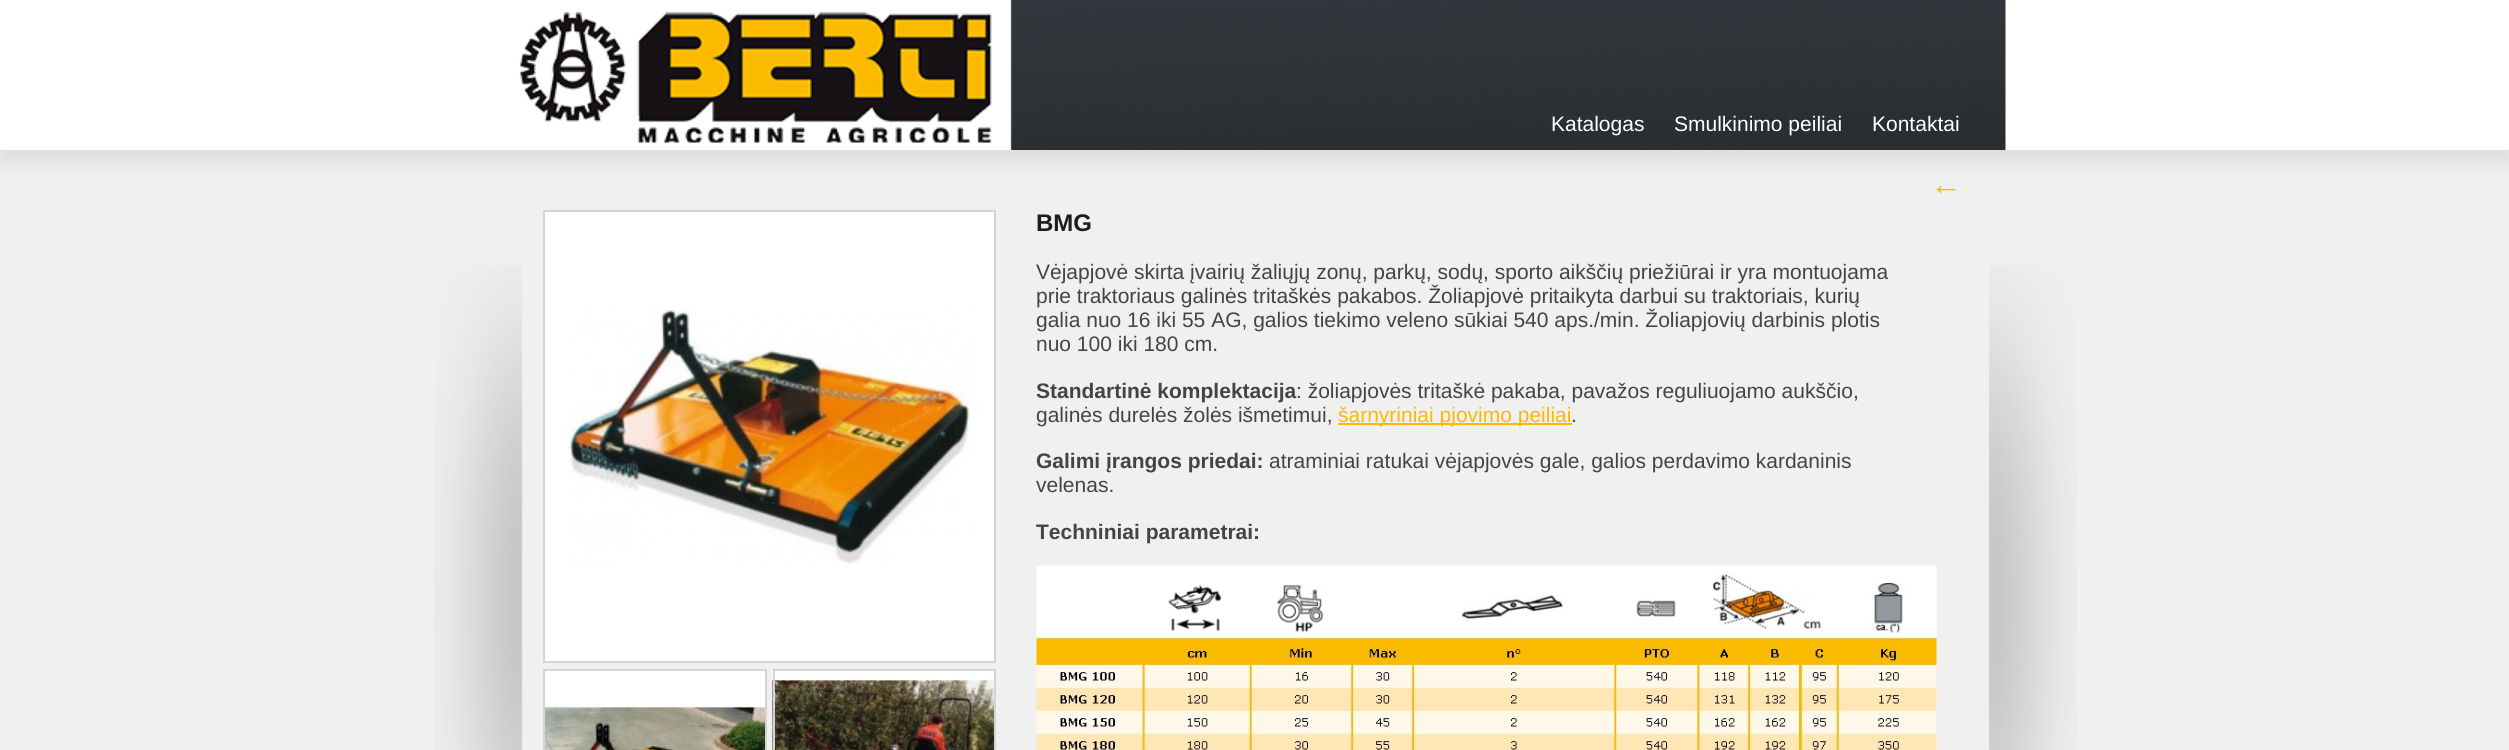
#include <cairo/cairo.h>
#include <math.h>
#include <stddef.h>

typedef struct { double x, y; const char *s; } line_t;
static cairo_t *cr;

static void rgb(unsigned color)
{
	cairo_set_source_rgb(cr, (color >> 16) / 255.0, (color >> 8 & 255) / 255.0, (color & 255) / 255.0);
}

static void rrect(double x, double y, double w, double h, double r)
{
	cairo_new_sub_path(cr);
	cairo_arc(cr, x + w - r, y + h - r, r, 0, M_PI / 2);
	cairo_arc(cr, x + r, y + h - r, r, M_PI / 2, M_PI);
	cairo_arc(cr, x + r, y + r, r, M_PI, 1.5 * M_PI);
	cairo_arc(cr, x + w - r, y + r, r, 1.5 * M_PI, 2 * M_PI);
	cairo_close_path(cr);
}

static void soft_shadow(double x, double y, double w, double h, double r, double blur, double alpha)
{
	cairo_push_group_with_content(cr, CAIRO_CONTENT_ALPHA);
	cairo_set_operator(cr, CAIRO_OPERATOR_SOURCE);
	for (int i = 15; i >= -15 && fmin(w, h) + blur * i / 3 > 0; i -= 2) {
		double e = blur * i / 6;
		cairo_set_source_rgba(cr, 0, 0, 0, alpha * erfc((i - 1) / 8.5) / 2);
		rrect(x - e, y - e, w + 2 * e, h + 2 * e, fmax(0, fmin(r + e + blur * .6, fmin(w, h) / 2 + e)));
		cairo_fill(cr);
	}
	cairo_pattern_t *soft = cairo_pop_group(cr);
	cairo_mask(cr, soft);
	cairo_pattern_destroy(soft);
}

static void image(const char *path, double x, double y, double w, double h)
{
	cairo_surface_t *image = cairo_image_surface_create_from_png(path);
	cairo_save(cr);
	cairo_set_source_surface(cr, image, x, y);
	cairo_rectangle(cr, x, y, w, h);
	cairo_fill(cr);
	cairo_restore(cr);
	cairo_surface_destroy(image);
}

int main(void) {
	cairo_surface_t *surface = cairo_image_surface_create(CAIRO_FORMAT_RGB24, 2509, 750);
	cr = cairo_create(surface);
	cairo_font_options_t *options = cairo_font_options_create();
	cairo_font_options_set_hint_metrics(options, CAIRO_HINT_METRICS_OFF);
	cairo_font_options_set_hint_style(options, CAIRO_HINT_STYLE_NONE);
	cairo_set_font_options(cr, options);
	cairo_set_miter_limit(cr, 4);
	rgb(0xffffff);
	cairo_paint(cr);
	rgb(0xf0f0f0);
	cairo_rectangle(cr, 0, 150, 2509, 600);
	cairo_fill(cr);
	cairo_save(cr);
	cairo_rectangle(cr, 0, 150, 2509, 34);
	cairo_clip(cr);
	rgb(0xdbdbdb);
	soft_shadow(0, 12, 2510, 150, 0, 10.5, 1);
	cairo_restore(cr);
	image("img/1.png", 1010, 0, 996, 150);
	image("img/2.png", 520, 11, 472, 132);
	image("img/3.png", 434, 265, 1643, 485);
	rgb(0xffffff);
	cairo_rectangle(cr, 545, 212, 449, 449);
	cairo_fill(cr);
	image("img/4.png", 569, 308, 408, 257);
	cairo_rectangle(cr, 544, 211, 451, 451);
	rgb(0xd4d4d4);
	cairo_stroke(cr);
	rgb(0xffffff);
	cairo_rectangle(cr, 545, 671, 220, 33);
	cairo_fill(cr);
	image("img/5.png", 545, 704, 220, 46);
	cairo_rectangle(cr, 544, 670, 222, 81);
	rgb(0xd4d4d4);
	cairo_stroke(cr);
	image("img/6.png", 772, 669, 222, 81);
	cairo_rectangle(cr, 774, 670, 221, 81);
	cairo_stroke(cr);
	rgb(0xfbba00);
	cairo_rectangle(cr, 1338, 423, 234, 2);
	cairo_fill(cr);
	image("img/7.png", 1036, 565, 901, 185);
	cairo_select_font_face(cr, "Liberation Sans", CAIRO_FONT_SLANT_NORMAL, CAIRO_FONT_WEIGHT_NORMAL);
	cairo_set_font_size(cr, 21);
	rgb(0xffffff);
	{
		static const line_t items[] = {
			{1551, 131, "Katalogas"},
			{1674, 131, "Smulkinimo peiliai"},
			{1872, 131, "Kontaktai"},
		};
		for (size_t i = 0; i < sizeof items / sizeof *items; i++) {
			cairo_move_to(cr, items[i].x, items[i].y);
			cairo_show_text(cr, items[i].s);
		}
	}
	cairo_set_font_size(cr, 32);
	rgb(0xfbba00);
	cairo_move_to(cr, 1930, 195);
	cairo_show_text(cr, "←");
	cairo_select_font_face(cr, "Liberation Sans", CAIRO_FONT_SLANT_NORMAL, CAIRO_FONT_WEIGHT_BOLD);
	cairo_set_font_size(cr, 24);
	rgb(0x1d1d1d);
	cairo_move_to(cr, 1036, 231);
	cairo_show_text(cr, "BMG");
	cairo_select_font_face(cr, "Liberation Sans", CAIRO_FONT_SLANT_NORMAL, CAIRO_FONT_WEIGHT_NORMAL);
	cairo_set_font_size(cr, 21);
	rgb(0x444444);
	{
		static const line_t items[] = {
			{1036, 279, "Vėjapjovė skirta įvairių žaliųjų zonų, parkų, sodų, sporto aikščių priežiūrai ir yra montuojama"},
			{1036, 303, "prie traktoriaus galinės tritaškės pakabos. Žoliapjovė pritaikyta darbui su traktoriais, kurių"},
			{1036, 327, "galia nuo 16 iki 55 AG, galios tiekimo veleno sūkiai 540 aps./min. Žoliapjovių darbinis plotis"},
			{1036, 351, "nuo 100 iki 180 cm."},
		};
		for (size_t i = 0; i < sizeof items / sizeof *items; i++) {
			cairo_move_to(cr, items[i].x, items[i].y);
			cairo_show_text(cr, items[i].s);
		}
	}
	cairo_select_font_face(cr, "Liberation Sans", CAIRO_FONT_SLANT_NORMAL, CAIRO_FONT_WEIGHT_BOLD);
	cairo_move_to(cr, 1036, 398);
	cairo_show_text(cr, "Standartinė komplektacija");
	cairo_select_font_face(cr, "Liberation Sans", CAIRO_FONT_SLANT_NORMAL, CAIRO_FONT_WEIGHT_NORMAL);
	{
		static const line_t items[] = {
			{1296, 398, ": žoliapjovės tritaškė pakaba, pavažos reguliuojamo aukščio"},
			{1853, 398, ","},
			{1036, 422, "galinės durelės žolės išmetimui,"},
		};
		for (size_t i = 0; i < sizeof items / sizeof *items; i++) {
			cairo_move_to(cr, items[i].x, items[i].y);
			cairo_show_text(cr, items[i].s);
		}
	}
	rgb(0xfbba00);
	cairo_move_to(cr, 1338, 422);
	cairo_show_text(cr, "šarnyriniai pjovimo peiliai");
	rgb(0x444444);
	cairo_move_to(cr, 1571, 422);
	cairo_show_text(cr, ".");
	cairo_select_font_face(cr, "Liberation Sans", CAIRO_FONT_SLANT_NORMAL, CAIRO_FONT_WEIGHT_BOLD);
	cairo_move_to(cr, 1036, 468);
	cairo_show_text(cr, "Galimi įrangos priedai:");
	cairo_select_font_face(cr, "Liberation Sans", CAIRO_FONT_SLANT_NORMAL, CAIRO_FONT_WEIGHT_NORMAL);
	cairo_move_to(cr, 1269, 468);
	cairo_show_text(cr, "atraminiai ratukai vėjapjovės gale, galios perdavimo kardaninis");
	cairo_move_to(cr, 1036, 492);
	cairo_show_text(cr, "velenas.");
	cairo_select_font_face(cr, "Liberation Sans", CAIRO_FONT_SLANT_NORMAL, CAIRO_FONT_WEIGHT_BOLD);
	cairo_move_to(cr, 1036, 539);
	cairo_show_text(cr, "Techniniai parametrai:");
	cairo_surface_write_to_png(surface, "page.png");
	cairo_font_options_destroy(options);
	cairo_destroy(cr);
	cairo_surface_destroy(surface);
	return 0;
}
